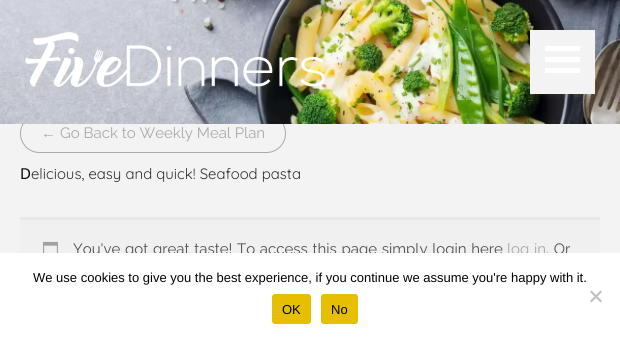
#include <cairo/cairo.h>
#include <math.h>
#include <stddef.h>

typedef struct { double x, y, w, h; unsigned color; } box_t;
static cairo_t *cr;

static void rgb(unsigned color)
{
	cairo_set_source_rgb(cr, (color >> 16) / 255.0, (color >> 8 & 255) / 255.0, (color & 255) / 255.0);
}

static void tracked(double x, double y, const char *s, double letter, double word)
{
	cairo_move_to(cr, x, y);
	while (*s) {
		char ch[5] = {0};
		int n = 0;
		do ch[n++] = *s++; while ((*s & 0xC0) == 0x80);
		cairo_show_text(cr, ch);
		cairo_rel_move_to(cr, letter + word * (*ch == ' '), 0);
	}
}

static void rrect(double x, double y, double w, double h, double r)
{
	cairo_new_sub_path(cr);
	cairo_arc(cr, x + w - r, y + h - r, r, 0, M_PI / 2);
	cairo_arc(cr, x + r, y + h - r, r, M_PI / 2, M_PI);
	cairo_arc(cr, x + r, y + r, r, M_PI, 1.5 * M_PI);
	cairo_arc(cr, x + w - r, y + r, r, 1.5 * M_PI, 2 * M_PI);
	cairo_close_path(cr);
}

static void soft_shadow(double x, double y, double w, double h, double r, double blur, double alpha)
{
	cairo_push_group_with_content(cr, CAIRO_CONTENT_ALPHA);
	cairo_set_operator(cr, CAIRO_OPERATOR_SOURCE);
	for (int i = 15; i >= -15 && fmin(w, h) + blur * i / 3 > 0; i -= 2) {
		double e = blur * i / 6;
		cairo_set_source_rgba(cr, 0, 0, 0, alpha * erfc((i - 1) / 8.5) / 2);
		rrect(x - e, y - e, w + 2 * e, h + 2 * e, fmax(0, fmin(r + e + blur * .6, fmin(w, h) / 2 + e)));
		cairo_fill(cr);
	}
	cairo_pattern_t *soft = cairo_pop_group(cr);
	cairo_mask(cr, soft);
	cairo_pattern_destroy(soft);
}

static void image(const char *path, double x, double y, double w, double h)
{
	cairo_surface_t *image = cairo_image_surface_create_from_png(path);
	cairo_save(cr);
	cairo_set_source_surface(cr, image, x, y);
	cairo_rectangle(cr, x, y, w, h);
	cairo_fill(cr);
	cairo_restore(cr);
	cairo_surface_destroy(image);
}

int main(void) {
	cairo_surface_t *surface = cairo_image_surface_create(CAIRO_FORMAT_RGB24, 620, 339);
	cr = cairo_create(surface);
	cairo_font_options_t *options = cairo_font_options_create();
	cairo_font_options_set_hint_metrics(options, CAIRO_HINT_METRICS_OFF);
	cairo_font_options_set_hint_style(options, CAIRO_HINT_STYLE_NONE);
	cairo_set_font_options(cr, options);
	cairo_set_miter_limit(cr, 4);
	rgb(0xf3f3f4);
	cairo_paint(cr);
	rrect(20.5, 114.5, 265, 38, 19);
	rgb(0xaaaaaa);
	cairo_set_line_width(cr, 1);
	cairo_stroke(cr);
	image("img/1.png", 0, 0, 620, 124);
	image("img/2.png", 25, 32, 300, 55);
	rgb(0xffb517);
	soft_shadow(530, 31, 65, 64, 5, 2.5, 0.1);
	{
		static const box_t items[] = {
			{530, 30, 65, 64, 0xf3f3f4},
			{545, 46, 35, 5, 0xffffff},
			{545, 57, 35, 5, 0xffffff},
			{545, 68, 35, 5, 0xffffff},
			{20, 220, 580, 33, 0xf0f0f0},
			{20, 217, 580, 3, 0xe8e8e8},
		};
		for (size_t i = 0; i < sizeof items / sizeof *items; i++) {
			rgb(items[i].color);
			cairo_rectangle(cr, items[i].x, items[i].y, items[i].w, items[i].h);
			cairo_fill(cr);
		}
	}
	image("img/3.png", 43, 241, 15, 12);
	cairo_select_font_face(cr, "Liberation Serif", CAIRO_FONT_SLANT_NORMAL, CAIRO_FONT_WEIGHT_NORMAL);
	cairo_set_font_size(cr, 15);
	rgb(0xaaaaaa);
	cairo_move_to(cr, 41, 138);
	cairo_show_text(cr, "←");
	cairo_select_font_face(cr, "Raleway", CAIRO_FONT_SLANT_NORMAL, CAIRO_FONT_WEIGHT_NORMAL);
	cairo_move_to(cr, 60, 138);
	cairo_show_text(cr, "Go Back to Weekly Meal Plan");
	cairo_select_font_face(cr, "Noto Sans", CAIRO_FONT_SLANT_NORMAL, CAIRO_FONT_WEIGHT_NORMAL);
	rgb(0x030303);
	cairo_move_to(cr, 20, 179);
	cairo_show_text(cr, "D");
	cairo_select_font_face(cr, "Quicksand", CAIRO_FONT_SLANT_NORMAL, CAIRO_FONT_WEIGHT_NORMAL);
	rgb(0x333333);
	cairo_move_to(cr, 31, 179);
	cairo_show_text(cr, "elicious, easy and quick! Seafood pasta");
	cairo_select_font_face(cr, "Raleway", CAIRO_FONT_SLANT_NORMAL, CAIRO_FONT_WEIGHT_NORMAL);
	rgb(0x515151);
	tracked(73, 254, "You've got great taste! To access this page simply login here", 0, 0.9);
	rgb(0xaaaaaa);
	tracked(507, 254, "log in", 0, 0.9);
	rgb(0x515151);
	tracked(546, 254, ". Or", 0, 1);
	rgb(0xffffff);
	cairo_rectangle(cr, 0, 253, 620, 86);
	cairo_fill(cr);
	cairo_select_font_face(cr, "Liberation Sans", CAIRO_FONT_SLANT_NORMAL, CAIRO_FONT_WEIGHT_NORMAL);
	cairo_set_font_size(cr, 13);
	rgb(0x030303);
	cairo_move_to(cr, 33, 282);
	cairo_show_text(cr, "We use cookies to give you the best experience, if you continue we assume you're happy with it.");
	rgb(0xc0c0c0);
	cairo_new_path(cr);
	cairo_move_to(cr, 600.5, 290.5);
	cairo_line_to(cr, 602, 292);
	cairo_line_to(cr, 591.5, 302.5);
	cairo_line_to(cr, 590, 301);
	cairo_close_path(cr);
	cairo_fill(cr);
	cairo_new_path(cr);
	cairo_move_to(cr, 590, 292);
	cairo_line_to(cr, 591.5, 290.5);
	cairo_line_to(cr, 602, 301);
	cairo_line_to(cr, 600.5, 302.5);
	cairo_close_path(cr);
	cairo_fill(cr);
	rgb(0xe5bf00);
	rrect(272, 294, 39, 30, 3);
	cairo_fill(cr);
	rgb(0x030303);
	cairo_move_to(cr, 282, 314);
	cairo_show_text(cr, "OK");
	rgb(0xe5bf00);
	rrect(321, 294, 37, 30, 3);
	cairo_fill(cr);
	rgb(0x030303);
	cairo_move_to(cr, 331, 314);
	cairo_show_text(cr, "No");
	cairo_surface_write_to_png(surface, "page.png");
	cairo_font_options_destroy(options);
	cairo_destroy(cr);
	cairo_surface_destroy(surface);
	return 0;
}
